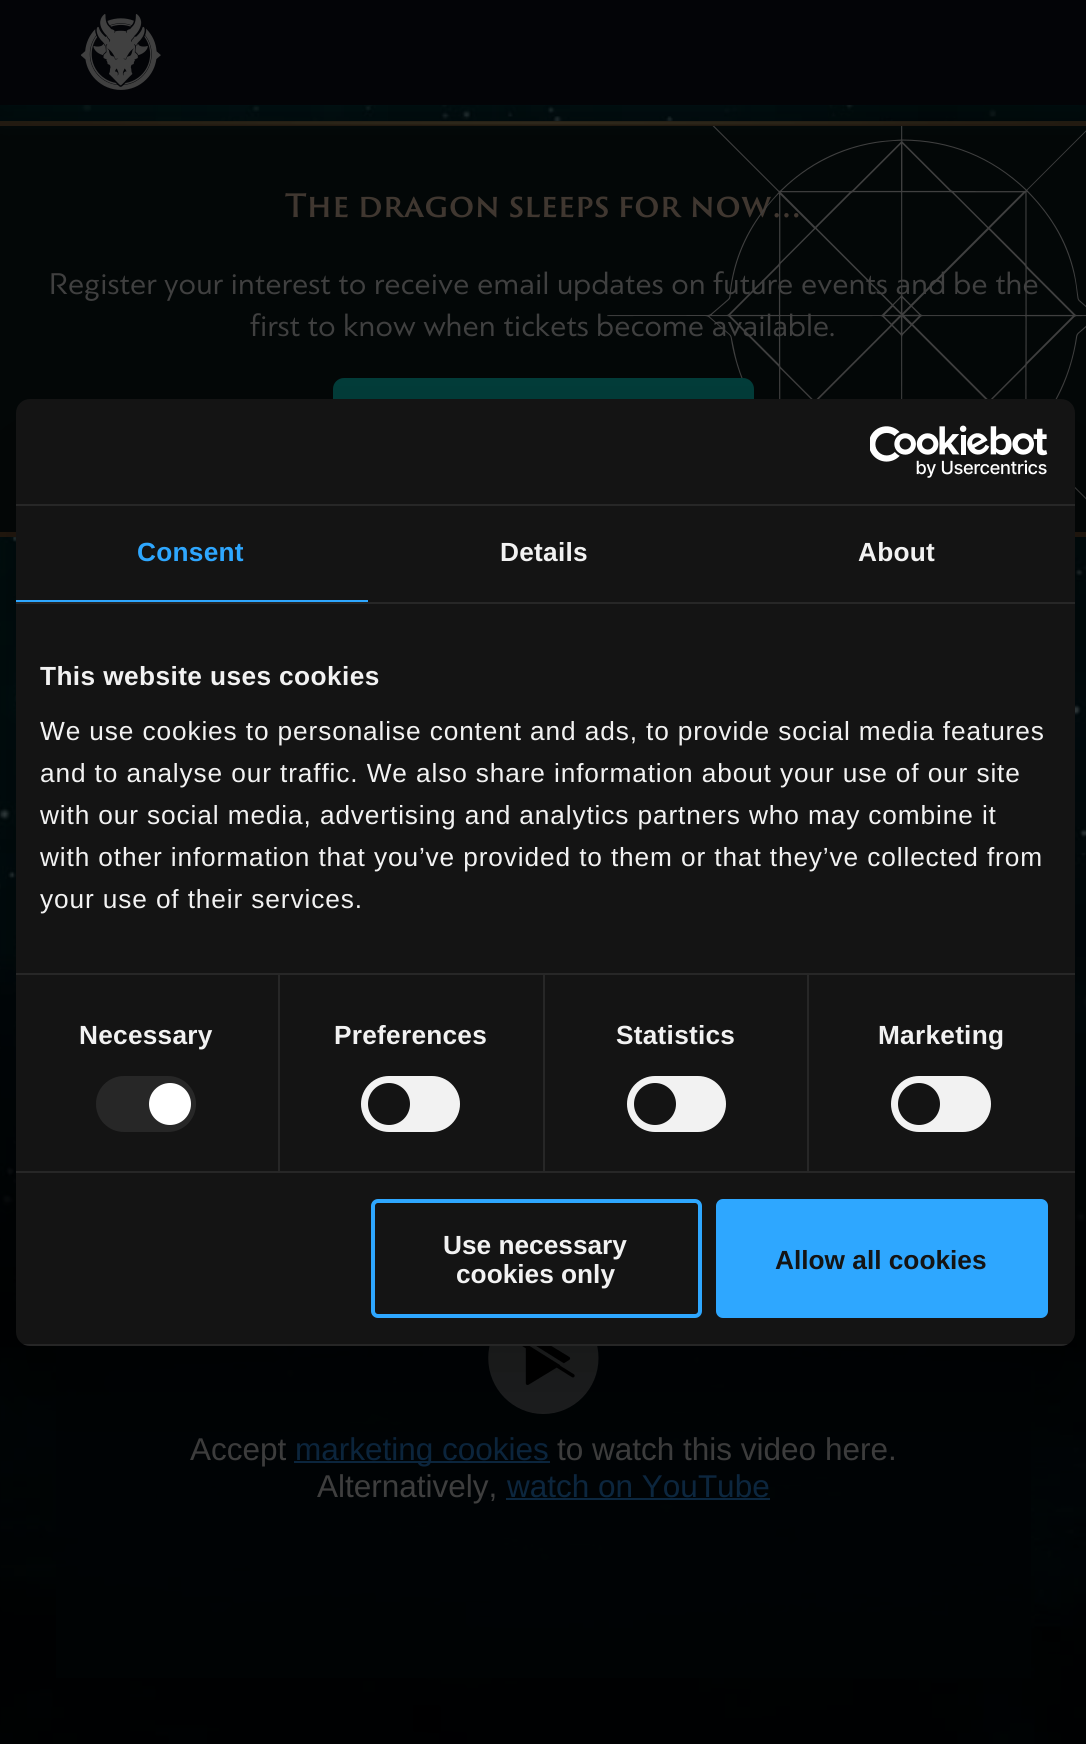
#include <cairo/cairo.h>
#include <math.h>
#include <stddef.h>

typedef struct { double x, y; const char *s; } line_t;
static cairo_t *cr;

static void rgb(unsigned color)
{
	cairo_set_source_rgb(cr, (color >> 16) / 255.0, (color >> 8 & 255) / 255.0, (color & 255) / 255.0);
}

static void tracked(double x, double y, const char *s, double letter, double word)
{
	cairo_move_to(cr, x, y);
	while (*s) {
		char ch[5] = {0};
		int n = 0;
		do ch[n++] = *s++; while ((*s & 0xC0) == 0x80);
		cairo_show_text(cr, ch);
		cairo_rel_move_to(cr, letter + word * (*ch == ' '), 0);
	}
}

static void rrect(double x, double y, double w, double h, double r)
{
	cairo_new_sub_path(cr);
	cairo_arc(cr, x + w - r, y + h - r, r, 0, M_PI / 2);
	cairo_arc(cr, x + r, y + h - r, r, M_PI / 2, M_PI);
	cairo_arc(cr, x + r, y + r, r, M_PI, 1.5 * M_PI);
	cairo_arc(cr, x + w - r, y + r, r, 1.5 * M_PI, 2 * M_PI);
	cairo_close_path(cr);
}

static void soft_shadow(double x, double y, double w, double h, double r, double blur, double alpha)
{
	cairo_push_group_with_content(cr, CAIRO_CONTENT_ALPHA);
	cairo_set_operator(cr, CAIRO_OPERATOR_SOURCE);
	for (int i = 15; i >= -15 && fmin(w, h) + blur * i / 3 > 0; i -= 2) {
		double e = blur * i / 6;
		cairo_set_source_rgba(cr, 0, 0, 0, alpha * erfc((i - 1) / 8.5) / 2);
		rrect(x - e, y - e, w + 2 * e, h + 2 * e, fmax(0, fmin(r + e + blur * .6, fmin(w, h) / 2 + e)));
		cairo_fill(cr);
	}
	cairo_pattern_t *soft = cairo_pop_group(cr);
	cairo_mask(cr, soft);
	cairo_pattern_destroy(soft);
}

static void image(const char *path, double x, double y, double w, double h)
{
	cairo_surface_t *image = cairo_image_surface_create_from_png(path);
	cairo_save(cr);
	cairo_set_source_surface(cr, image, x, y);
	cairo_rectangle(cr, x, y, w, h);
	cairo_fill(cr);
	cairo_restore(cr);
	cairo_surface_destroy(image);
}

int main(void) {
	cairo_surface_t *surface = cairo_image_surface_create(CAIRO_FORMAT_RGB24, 1086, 1744);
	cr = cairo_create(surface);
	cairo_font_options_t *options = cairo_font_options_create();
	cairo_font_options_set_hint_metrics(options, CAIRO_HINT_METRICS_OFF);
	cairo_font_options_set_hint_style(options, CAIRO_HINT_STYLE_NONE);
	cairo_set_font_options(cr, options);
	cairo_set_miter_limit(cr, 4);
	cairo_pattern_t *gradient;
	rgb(0xffffff);
	cairo_paint(cr);
	image("img/2.png", 0, 105, 1086, 1639);
	rgb(0x030707);
	cairo_rectangle(cr, 0, 126, 1086, 406);
	cairo_fill(cr);
	gradient = cairo_pattern_create_radial(0, 0, 0, 0, 0, 1);
	cairo_pattern_set_matrix(gradient, &(cairo_matrix_t){1.0 / 543, 0, 0, 1.0 / 2.6, -1.0 * 543 / 543, -1.0 * 123 / 2.6});
	cairo_pattern_add_color_stop_rgba(gradient, 0, 0.196, 0.165, 0.11, 1);
	cairo_pattern_add_color_stop_rgba(gradient, 1, 0.137, 0.098, 0.059, 1);
	cairo_set_source(cr, gradient);
	cairo_pattern_destroy(gradient);
	cairo_rectangle(cr, 0, 121, 1086, 5);
	cairo_fill(cr);
	image("img/4.png", 51, 271, 987, 30);
	image("img/5.png", 250, 313, 584, 24);
	gradient = cairo_pattern_create_radial(0, 0, 0, 0, 0, 1);
	cairo_pattern_set_matrix(gradient, &(cairo_matrix_t){1.0 / 543, 0, 0, 1.0 / 2.6, -1.0 * 543 / 543, -1.0 * 535 / 2.6});
	cairo_pattern_add_color_stop_rgba(gradient, 0, 0.196, 0.165, 0.11, 1);
	cairo_pattern_add_color_stop_rgba(gradient, 1, 0.137, 0.098, 0.059, 1);
	cairo_set_source(cr, gradient);
	cairo_pattern_destroy(gradient);
	cairo_rectangle(cr, 0, 532, 1086, 5);
	cairo_fill(cr);
	cairo_set_source_rgba(cr, 0, 0.169, 0.251, 0.3);
	cairo_rectangle(cr, 56, 1346, 975, 332);
	cairo_fill(cr);
	cairo_set_source_rgba(cr, 0, 0, 0, 0.8);
	cairo_rectangle(cr, 56, 1346, 975, 332);
	cairo_fill(cr);
	image("img/6.png", 488, 1346, 111, 68);
	rgb(0x0c2740);
	cairo_rectangle(cr, 294, 1461, 256, 2);
	cairo_fill(cr);
	cairo_rectangle(cr, 506, 1498, 264, 2);
	cairo_fill(cr);
	cairo_select_font_face(cr, "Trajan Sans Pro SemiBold", CAIRO_FONT_SLANT_NORMAL, CAIRO_FONT_WEIGHT_NORMAL);
	cairo_set_font_size(cr, 31.5);
	rgb(0x403730);
	tracked(285, 217, "The dragon sleeps for now…", 0.1, 0);
	image("img/3.png", 607, 126, 479, 374);
	rgb(0x023e3b);
	soft_shadow(0, 4, 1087, 105, 0, 17.5, 0.18);
	rgb(0x030407);
	cairo_rectangle(cr, 0, 0, 1086, 105);
	cairo_fill(cr);
	image("img/1.png", 81, 14, 80, 76);
	rgb(0x023e3b);
	rrect(333, 378, 421, 98, 11);
	cairo_fill(cr);
	cairo_select_font_face(cr, "Liberation Sans", CAIRO_FONT_SLANT_NORMAL, CAIRO_FONT_WEIGHT_NORMAL);
	rgb(0x404040);
	cairo_move_to(cr, 190, 1460);
	cairo_show_text(cr, "Accept");
	rgb(0x0c2740);
	cairo_move_to(cr, 295, 1460);
	cairo_show_text(cr, "marketing cookies");
	rgb(0x404040);
	cairo_move_to(cr, 557, 1460);
	cairo_show_text(cr, "to watch this video here.");
	cairo_move_to(cr, 317, 1497);
	cairo_show_text(cr, "Alternatively,");
	rgb(0x0c2740);
	cairo_move_to(cr, 507, 1497);
	cairo_show_text(cr, "watch on YouTube");
	rgb(0x000000);
	soft_shadow(16, 455, 1059, 947, 14, 59.5, 0.3);
	rgb(0x141414);
	rrect(16, 399, 1059, 947, 14);
	cairo_fill(cr);
	rgb(0x272727);
	cairo_rectangle(cr, 16, 504, 1059, 2);
	cairo_fill(cr);
	image("img/7.png", 870, 425, 178, 53);
	cairo_rectangle(cr, 16, 602, 1059, 2);
	cairo_fill(cr);
	rgb(0x2ea7ff);
	cairo_rectangle(cr, 16, 600, 352, 2);
	cairo_fill(cr);
	cairo_select_font_face(cr, "Liberation Sans", CAIRO_FONT_SLANT_NORMAL, CAIRO_FONT_WEIGHT_BOLD);
	cairo_set_font_size(cr, 26.25);
	tracked(137, 561, "Consent", 0.25, 0);
	rgb(0xf2f2f2);
	tracked(500, 561, "Details", 0.25, 0);
	tracked(858, 561, "About", 0.25, 0);
	rgb(0x272727);
	cairo_rectangle(cr, 16, 973, 1059, 2);
	cairo_fill(cr);
	rgb(0xf2f2f2);
	tracked(40, 685, "This website uses cookies", 0.4, 0);
	cairo_select_font_face(cr, "Liberation Sans", CAIRO_FONT_SLANT_NORMAL, CAIRO_FONT_WEIGHT_NORMAL);
	{
		static const line_t items[] = {
			{40, 740, "We use cookies to personalise content and ads, to provide social media features"},
			{40, 782, "and to analyse our traffic. We also share information about your use of our site"},
			{40, 824, "with our social media, advertising and analytics partners who may combine it"},
			{40, 866, "with other information that you’ve provided to them or that they’ve collected from"},
			{40, 908, "your use of their services."},
		};
		for (size_t i = 0; i < sizeof items / sizeof *items; i++) {
			tracked(items[i].x, items[i].y, items[i].s, 0.88, 0);
		}
	}
	rgb(0x272727);
	cairo_rectangle(cr, 16, 1171, 1059, 2);
	cairo_fill(cr);
	cairo_rectangle(cr, 278, 975, 2, 196);
	cairo_fill(cr);
	cairo_select_font_face(cr, "Liberation Sans", CAIRO_FONT_SLANT_NORMAL, CAIRO_FONT_WEIGHT_BOLD);
	rgb(0xf2f2f2);
	tracked(79, 1044, "Necessary", 0.25, 0);
	rgb(0x272727);
	rrect(96, 1076, 100, 56, 28);
	cairo_fill(cr);
	rgb(0xffffff);
	cairo_arc(cr, 170, 1104, 21, 0, 2 * M_PI);
	cairo_fill(cr);
	rgb(0x272727);
	cairo_rectangle(cr, 543, 975, 2, 196);
	cairo_fill(cr);
	rgb(0xf2f2f2);
	tracked(334, 1044, "Preferences", 0.25, 0);
	rrect(361, 1076, 99, 56, 28);
	cairo_fill(cr);
	rgb(0x141414);
	cairo_arc(cr, 389, 1104, 21, 0, 2 * M_PI);
	cairo_fill(cr);
	rgb(0x272727);
	cairo_rectangle(cr, 807, 975, 2, 196);
	cairo_fill(cr);
	rgb(0xf2f2f2);
	tracked(616, 1044, "Statistics", 0.25, 0);
	rrect(627, 1076, 99, 56, 28);
	cairo_fill(cr);
	rgb(0x141414);
	cairo_arc(cr, 655, 1104, 21, 0, 2 * M_PI);
	cairo_fill(cr);
	rgb(0xf2f2f2);
	tracked(878, 1044, "Marketing", 0.25, 0);
	rrect(891, 1076, 100, 56, 28);
	cairo_fill(cr);
	rgb(0x141414);
	cairo_arc(cr, 919, 1104, 21, 0, 2 * M_PI);
	cairo_fill(cr);
	cairo_save(cr);
	rrect(16, 399, 1059, 947, 14);
	cairo_clip(cr);
	cairo_set_source_rgba(cr, 1, 1, 1, 0.08);
	cairo_rectangle(cr, 16, 1344, 1059, 2);
	cairo_fill(cr);
	cairo_restore(cr);
	rrect(373, 1201, 327, 115, 5);
	rgb(0x2ea7ff);
	cairo_set_line_width(cr, 4);
	cairo_stroke(cr);
	rgb(0xf2f2f2);
	cairo_move_to(cr, 443, 1254);
	cairo_show_text(cr, "Use necessary");
	cairo_move_to(cr, 456, 1283);
	cairo_show_text(cr, "cookies only");
	rgb(0x2ea7ff);
	rrect(718, 1201, 328, 115, 5);
	cairo_fill_preserve(cr);
	cairo_stroke(cr);
	rgb(0x141414);
	cairo_move_to(cr, 775, 1269);
	cairo_show_text(cr, "Allow all cookies");
	cairo_surface_write_to_png(surface, "page.png");
	cairo_font_options_destroy(options);
	cairo_destroy(cr);
	cairo_surface_destroy(surface);
	return 0;
}
